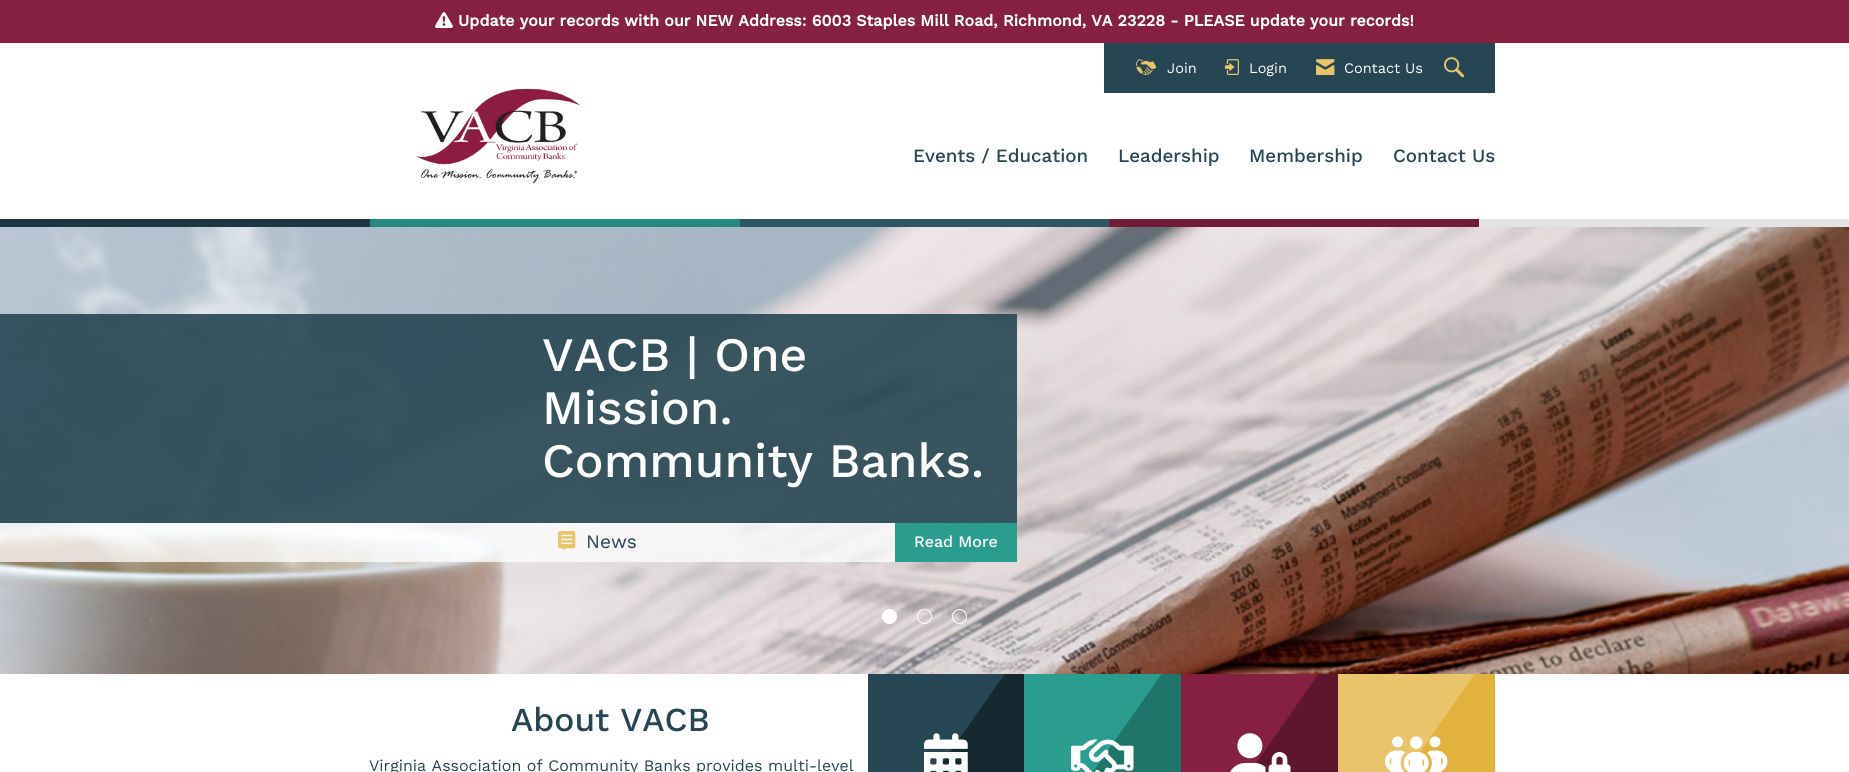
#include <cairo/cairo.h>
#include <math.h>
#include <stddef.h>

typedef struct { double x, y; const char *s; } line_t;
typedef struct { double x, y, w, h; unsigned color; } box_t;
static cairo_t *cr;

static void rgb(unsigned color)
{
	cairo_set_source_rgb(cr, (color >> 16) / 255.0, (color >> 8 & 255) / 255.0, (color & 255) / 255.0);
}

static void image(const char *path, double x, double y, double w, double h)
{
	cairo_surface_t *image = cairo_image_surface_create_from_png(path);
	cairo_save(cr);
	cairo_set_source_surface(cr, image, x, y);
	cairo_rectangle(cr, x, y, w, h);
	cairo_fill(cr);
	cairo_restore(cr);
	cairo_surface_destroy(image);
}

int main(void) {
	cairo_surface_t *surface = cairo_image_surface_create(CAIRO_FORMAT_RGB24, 1849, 772);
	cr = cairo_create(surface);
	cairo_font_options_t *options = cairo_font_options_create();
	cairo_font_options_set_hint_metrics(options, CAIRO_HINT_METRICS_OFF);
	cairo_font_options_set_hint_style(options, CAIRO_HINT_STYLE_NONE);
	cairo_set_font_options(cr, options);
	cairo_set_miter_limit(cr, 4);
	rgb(0x862041);
	cairo_paint(cr);
	image("img/1.png", 435, 12, 18, 16);
	rgb(0xffffff);
	cairo_rectangle(cr, 0, 43, 1849, 176);
	cairo_fill(cr);
	rgb(0x264653);
	cairo_rectangle(cr, 1104, 43, 391, 50);
	cairo_fill(cr);
	image("img/2.png", 1136, 59, 21, 16);
	image("img/3.png", 1225, 59, 14, 16);
	image("img/4.png", 1316, 59, 19, 16);
	image("img/5.png", 1444, 57, 21, 21);
	image("img/6.png", 416, 88, 164, 96);
	{
		static const box_t items[] = {
			{0, 219, 370, 8, 0x1e3742},
			{370, 219, 370, 8, 0x25897d},
			{740, 219, 369, 8, 0x2e5564},
			{1109, 219, 370, 8, 0x711b37},
			{1479, 219, 370, 8, 0xe3e3e3},
		};
		for (size_t i = 0; i < sizeof items / sizeof *items; i++) {
			rgb(items[i].color);
			cairo_rectangle(cr, items[i].x, items[i].y, items[i].w, items[i].h);
			cairo_fill(cr);
		}
	}
	image("img/7.png", 0, 227, 1849, 447);
	cairo_set_source_rgba(cr, 0.149, 0.275, 0.325, 0.9);
	cairo_rectangle(cr, 0, 314, 1017, 209);
	cairo_fill(cr);
	cairo_set_source_rgba(cr, 1, 1, 1, 0.75);
	cairo_rectangle(cr, 0, 523, 895, 39);
	cairo_fill(cr);
	image("img/8.png", 558, 531, 18, 20);
	rgb(0x2a9d8f);
	cairo_rectangle(cr, 895, 523, 122, 39);
	cairo_fill(cr);
	rgb(0xffffff);
	cairo_arc(cr, 889.5, 616.5, 7, 0, 2 * M_PI);
	cairo_fill_preserve(cr);
	cairo_set_line_width(cr, 1);
	cairo_stroke(cr);
	cairo_arc(cr, 924.5, 616.5, 7, 0, 2 * M_PI);
	cairo_stroke(cr);
	cairo_arc(cr, 959.5, 616.5, 7, 0, 2 * M_PI);
	cairo_stroke(cr);
	cairo_rectangle(cr, 0, 674, 1849, 98);
	cairo_fill(cr);
	rgb(0x264653);
	cairo_rectangle(cr, 868, 674, 137, 98);
	cairo_fill(cr);
	cairo_save(cr);
	cairo_rectangle(cr, 868, 674, 156, 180);
	cairo_clip(cr);
	rgb(0x162830);
	cairo_new_path(cr);
	cairo_move_to(cr, 1013, 662);
	cairo_line_to(cr, 1142, 752);
	cairo_line_to(cr, 935, 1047);
	cairo_line_to(cr, 807, 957);
	cairo_close_path(cr);
	cairo_fill(cr);
	cairo_restore(cr);
	image("img/9.png", 924, 733, 44, 39);
	rgb(0x2a9d8f);
	cairo_rectangle(cr, 1024, 674, 138, 98);
	cairo_fill(cr);
	cairo_save(cr);
	cairo_rectangle(cr, 1024, 674, 157, 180);
	cairo_clip(cr);
	rgb(0x1f756a);
	cairo_new_path(cr);
	cairo_move_to(cr, 1170, 662);
	cairo_line_to(cr, 1298, 752);
	cairo_line_to(cr, 1092, 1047);
	cairo_line_to(cr, 963, 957);
	cairo_close_path(cr);
	cairo_fill(cr);
	cairo_restore(cr);
	image("img/10.png", 1071, 739, 63, 33);
	rgb(0x862041);
	cairo_rectangle(cr, 1181, 674, 138, 98);
	cairo_fill(cr);
	cairo_save(cr);
	cairo_rectangle(cr, 1181, 674, 157, 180);
	cairo_clip(cr);
	rgb(0x5d162d);
	cairo_new_path(cr);
	cairo_move_to(cr, 1327, 662);
	cairo_line_to(cr, 1455, 752);
	cairo_line_to(cr, 1249, 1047);
	cairo_line_to(cr, 1120, 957);
	cairo_close_path(cr);
	cairo_fill(cr);
	cairo_restore(cr);
	image("img/11.png", 1230, 733, 61, 39);
	rgb(0xe9c46a);
	cairo_rectangle(cr, 1338, 674, 137, 98);
	cairo_fill(cr);
	cairo_save(cr);
	cairo_rectangle(cr, 1338, 674, 157, 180);
	cairo_clip(cr);
	rgb(0xe2b23e);
	cairo_new_path(cr);
	cairo_move_to(cr, 1483, 662);
	cairo_line_to(cr, 1612, 752);
	cairo_line_to(cr, 1405, 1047);
	cairo_line_to(cr, 1277, 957);
	cairo_close_path(cr);
	cairo_fill(cr);
	cairo_restore(cr);
	image("img/12.png", 1385, 736, 63, 36);
	cairo_select_font_face(cr, "Work Sans", CAIRO_FONT_SLANT_NORMAL, CAIRO_FONT_WEIGHT_BOLD);
	cairo_set_font_size(cr, 16);
	rgb(0xffffff);
	cairo_move_to(cr, 458, 26);
	cairo_show_text(cr, "Update your records with our NEW Address: 6003 Staples Mill Road, Richmond, VA 23228 - PLEASE update your records!");
	cairo_select_font_face(cr, "Work Sans", CAIRO_FONT_SLANT_NORMAL, CAIRO_FONT_WEIGHT_NORMAL);
	cairo_set_font_size(cr, 14.5);
	{
		static const line_t items[] = {
			{1167, 73, "Join"},
			{1249, 73, "Login"},
			{1344, 73, "Contact Us"},
		};
		for (size_t i = 0; i < sizeof items / sizeof *items; i++) {
			cairo_move_to(cr, items[i].x, items[i].y);
			cairo_show_text(cr, items[i].s);
		}
	}
	cairo_select_font_face(cr, "Work Sans Medium", CAIRO_FONT_SLANT_NORMAL, CAIRO_FONT_WEIGHT_NORMAL);
	cairo_set_font_size(cr, 18.75);
	rgb(0x264653);
	{
		static const line_t items[] = {
			{913, 162, "Events / Education"},
			{1118, 162, "Leadership"},
			{1249, 162, "Membership"},
			{1393, 162, "Contact Us"},
		};
		for (size_t i = 0; i < sizeof items / sizeof *items; i++) {
			cairo_move_to(cr, items[i].x, items[i].y);
			cairo_show_text(cr, items[i].s);
		}
	}
	cairo_set_font_size(cr, 48);
	rgb(0xffffff);
	{
		static const line_t items[] = {
			{542, 371, "VACB | One"},
			{542, 424, "Mission."},
			{542, 477, "Community Banks."},
		};
		for (size_t i = 0; i < sizeof items / sizeof *items; i++) {
			cairo_move_to(cr, items[i].x, items[i].y);
			cairo_show_text(cr, items[i].s);
		}
	}
	cairo_select_font_face(cr, "Work Sans", CAIRO_FONT_SLANT_NORMAL, CAIRO_FONT_WEIGHT_NORMAL);
	cairo_set_font_size(cr, 19);
	rgb(0x264653);
	cairo_move_to(cr, 586, 548);
	cairo_show_text(cr, "News");
	cairo_select_font_face(cr, "Work Sans Medium", CAIRO_FONT_SLANT_NORMAL, CAIRO_FONT_WEIGHT_NORMAL);
	cairo_set_font_size(cr, 16);
	rgb(0xffffff);
	cairo_move_to(cr, 914, 547);
	cairo_show_text(cr, "Read More");
	cairo_set_font_size(cr, 33.5);
	rgb(0x264653);
	cairo_move_to(cr, 511, 731);
	cairo_show_text(cr, "About VACB");
	cairo_select_font_face(cr, "Work Sans", CAIRO_FONT_SLANT_NORMAL, CAIRO_FONT_WEIGHT_NORMAL);
	cairo_set_font_size(cr, 16);
	cairo_move_to(cr, 369, 771);
	cairo_show_text(cr, "Virginia Association of Community Banks provides multi-level");
	cairo_surface_write_to_png(surface, "page.png");
	cairo_font_options_destroy(options);
	cairo_destroy(cr);
	cairo_surface_destroy(surface);
	return 0;
}
